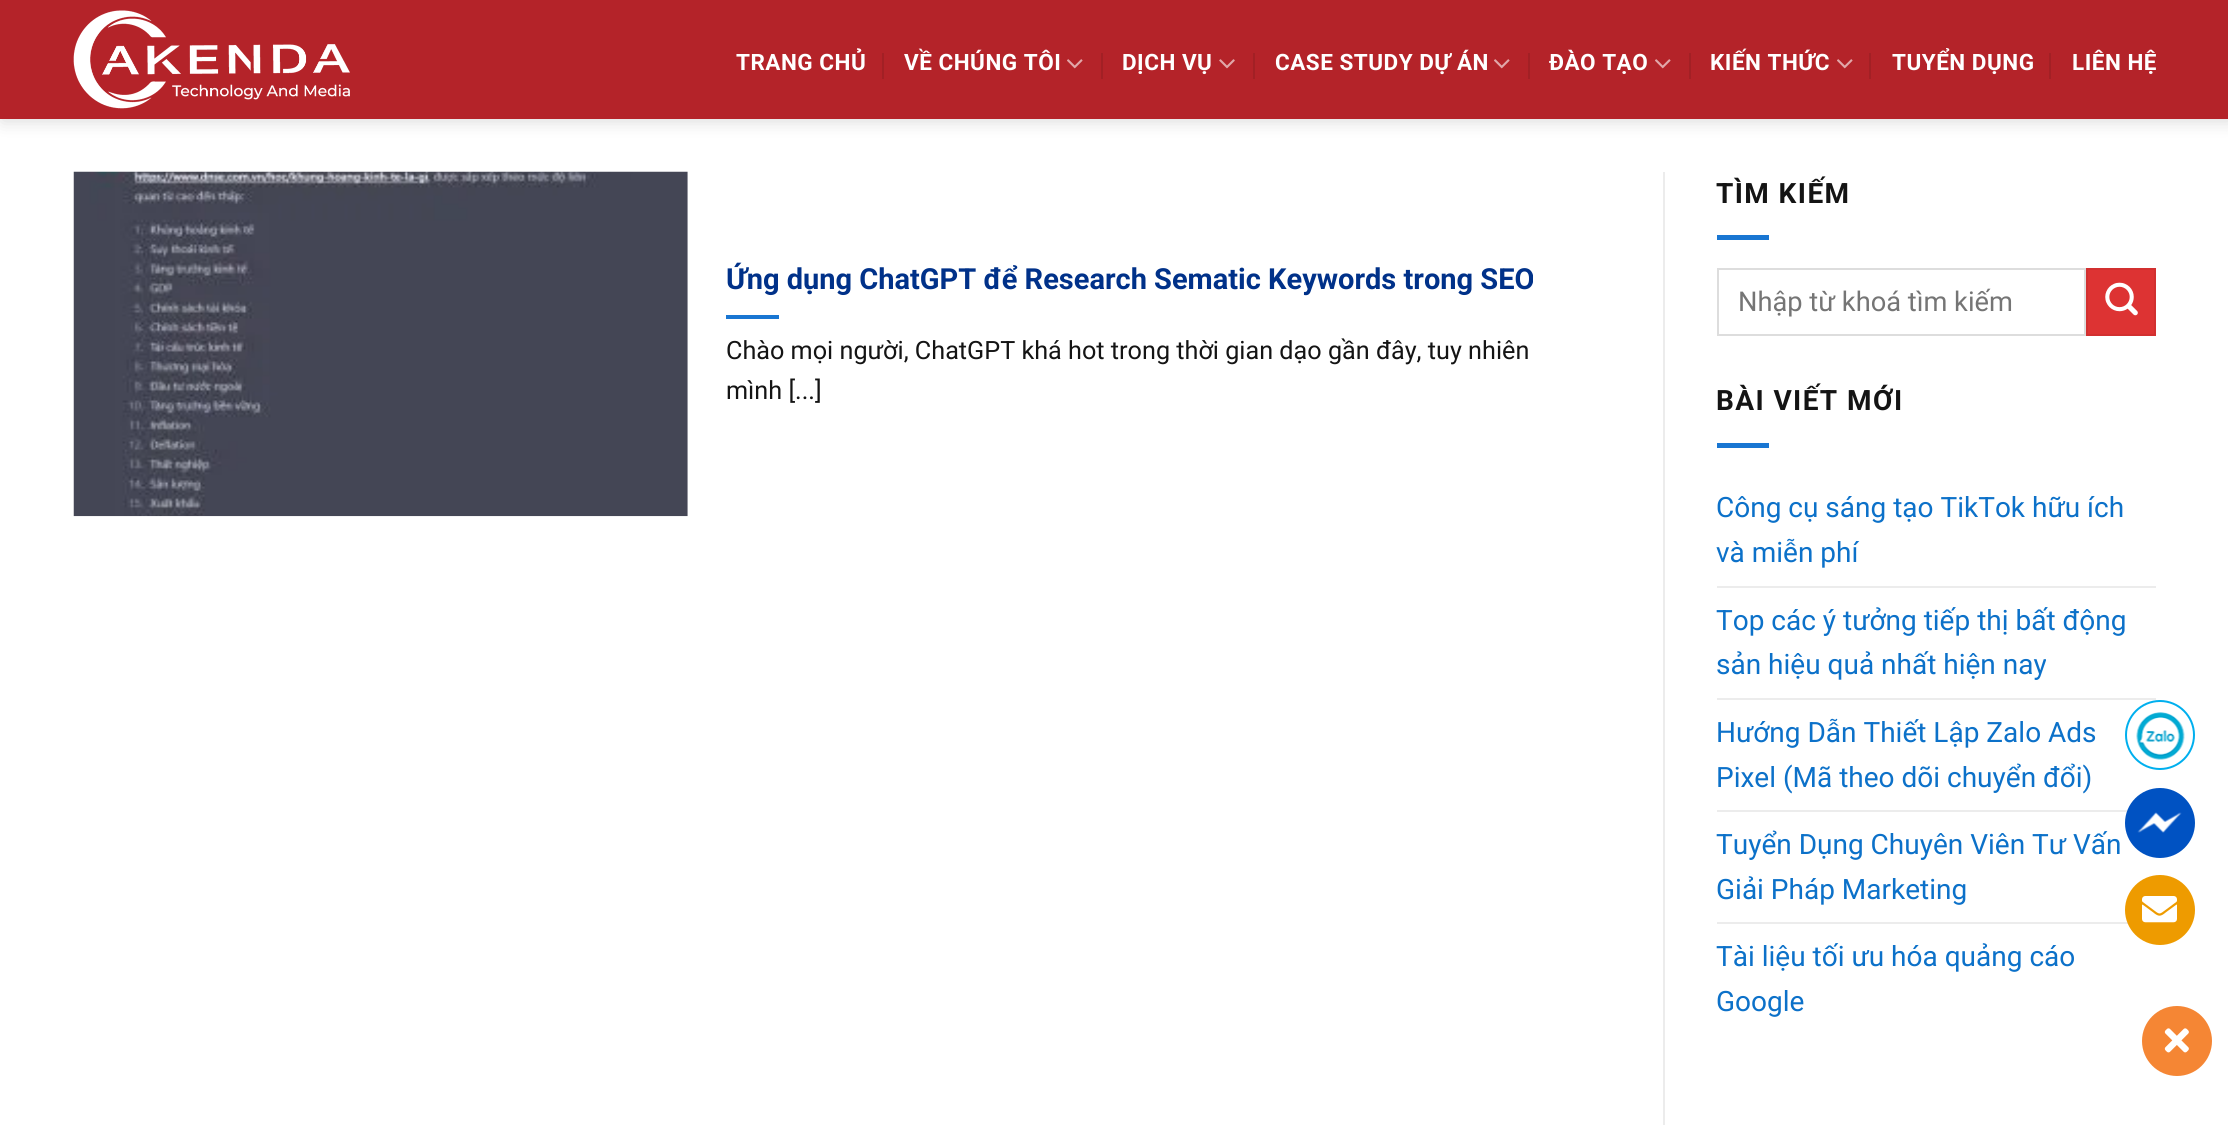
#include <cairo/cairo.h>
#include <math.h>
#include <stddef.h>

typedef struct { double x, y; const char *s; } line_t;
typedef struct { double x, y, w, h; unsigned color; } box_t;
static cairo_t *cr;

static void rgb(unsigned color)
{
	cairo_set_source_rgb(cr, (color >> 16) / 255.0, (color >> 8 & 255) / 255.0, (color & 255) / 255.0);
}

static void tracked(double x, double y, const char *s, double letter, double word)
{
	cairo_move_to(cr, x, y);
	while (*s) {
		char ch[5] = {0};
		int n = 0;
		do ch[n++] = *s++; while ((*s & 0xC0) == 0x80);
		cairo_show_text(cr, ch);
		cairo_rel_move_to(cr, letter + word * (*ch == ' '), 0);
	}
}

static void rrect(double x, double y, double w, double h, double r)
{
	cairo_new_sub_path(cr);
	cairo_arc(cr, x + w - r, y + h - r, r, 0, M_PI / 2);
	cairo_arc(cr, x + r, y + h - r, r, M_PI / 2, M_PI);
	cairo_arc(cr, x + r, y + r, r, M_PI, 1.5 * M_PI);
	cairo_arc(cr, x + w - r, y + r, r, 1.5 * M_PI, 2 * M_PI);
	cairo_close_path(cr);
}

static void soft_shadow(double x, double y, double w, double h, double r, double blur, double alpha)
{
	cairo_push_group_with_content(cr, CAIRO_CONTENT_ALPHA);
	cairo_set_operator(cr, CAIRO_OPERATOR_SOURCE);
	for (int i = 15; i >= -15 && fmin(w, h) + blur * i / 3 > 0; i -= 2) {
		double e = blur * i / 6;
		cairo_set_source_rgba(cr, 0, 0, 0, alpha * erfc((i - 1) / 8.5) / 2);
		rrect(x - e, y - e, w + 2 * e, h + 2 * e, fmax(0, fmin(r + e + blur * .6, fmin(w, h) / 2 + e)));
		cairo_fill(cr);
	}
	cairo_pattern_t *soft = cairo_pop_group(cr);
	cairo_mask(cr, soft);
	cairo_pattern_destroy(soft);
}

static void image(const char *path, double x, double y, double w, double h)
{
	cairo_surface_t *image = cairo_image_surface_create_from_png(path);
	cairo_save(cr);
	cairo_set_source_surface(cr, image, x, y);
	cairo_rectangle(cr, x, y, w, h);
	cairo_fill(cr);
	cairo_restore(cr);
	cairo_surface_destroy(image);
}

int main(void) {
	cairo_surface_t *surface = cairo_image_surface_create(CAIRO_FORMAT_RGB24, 2228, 1125);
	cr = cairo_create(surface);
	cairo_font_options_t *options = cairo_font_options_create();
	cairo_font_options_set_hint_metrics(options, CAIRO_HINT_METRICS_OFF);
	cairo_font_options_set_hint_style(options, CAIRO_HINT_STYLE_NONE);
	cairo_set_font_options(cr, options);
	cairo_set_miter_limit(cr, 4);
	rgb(0xffffff);
	cairo_paint(cr);
	rgb(0x000000);
	soft_shadow(2, 2, 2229, 119, 0, 9, 0.15);
	rgb(0xb42329);
	cairo_rectangle(cr, 0, 0, 2228, 119);
	cairo_fill(cr);
	image("img/1.png", 73, 10, 277, 99);
	rgb(0xa22025);
	cairo_rectangle(cr, 882, 53, 2, 26);
	cairo_fill(cr);
	image("img/2.png", 1067, 59, 16, 10);
	cairo_rectangle(cr, 1101, 53, 2, 26);
	cairo_fill(cr);
	image("img/3.png", 1219, 59, 16, 10);
	cairo_rectangle(cr, 1253, 53, 2, 26);
	cairo_fill(cr);
	image("img/2.png", 1494, 59, 16, 10);
	cairo_rectangle(cr, 1528, 53, 2, 26);
	cairo_fill(cr);
	image("img/2.png", 1655, 59, 16, 10);
	cairo_rectangle(cr, 1689, 53, 2, 26);
	cairo_fill(cr);
	image("img/2.png", 1837, 59, 16, 10);
	cairo_rectangle(cr, 1869, 53, 2, 26);
	cairo_fill(cr);
	cairo_rectangle(cr, 2049, 53, 2, 26);
	cairo_fill(cr);
	image("img/4.png", 73, 171, 615, 346);
	{
		static const box_t items[] = {
			{726, 315, 53, 4, 0x1976d2},
			{1663, 172, 2, 953, 0xececec},
			{1717, 235, 52, 5, 0x1976d2},
		};
		for (size_t i = 0; i < sizeof items / sizeof *items; i++) {
			rgb(items[i].color);
			cairo_rectangle(cr, items[i].x, items[i].y, items[i].w, items[i].h);
			cairo_fill(cr);
		}
	}
	cairo_rectangle(cr, 1718, 269, 367, 66);
	rgb(0xdddddd);
	cairo_stroke(cr);
	rgb(0xdd3333);
	cairo_rectangle(cr, 2087, 269, 68, 66);
	cairo_fill_preserve(cr);
	rgb(0xd23030);
	cairo_stroke(cr);
	image("img/5.png", 2105, 282, 33, 34);
	{
		static const box_t items[] = {
			{1717, 443, 52, 5, 0x1976d2},
			{1717, 586, 439, 2, 0xececec},
			{1717, 698, 439, 2, 0xececec},
			{1717, 810, 411, 2, 0xececec},
			{1717, 922, 411, 2, 0xececec},
		};
		for (size_t i = 0; i < sizeof items / sizeof *items; i++) {
			rgb(items[i].color);
			cairo_rectangle(cr, items[i].x, items[i].y, items[i].w, items[i].h);
			cairo_fill(cr);
		}
	}
	image("img/6.png", 2136, 712, 49, 48);
	cairo_arc(cr, 2160, 735, 34, 0, 2 * M_PI);
	rgb(0x00afee);
	cairo_stroke(cr);
	rgb(0x0052c2);
	cairo_arc(cr, 2160, 823, 35, 0, 2 * M_PI);
	cairo_fill(cr);
	image("img/7.png", 2137, 812, 45, 21);
	rgb(0xee9b00);
	cairo_arc(cr, 2160, 910, 35, 0, 2 * M_PI);
	cairo_fill(cr);
	image("img/8.png", 2142, 896, 35, 27);
	rgb(0xf58634);
	cairo_arc(cr, 2177, 1041, 35, 0, 2 * M_PI);
	cairo_fill(cr);
	image("img/9.png", 2164, 1028, 25, 25);
	cairo_select_font_face(cr, "Roboto", CAIRO_FONT_SLANT_NORMAL, CAIRO_FONT_WEIGHT_BOLD);
	cairo_set_font_size(cr, 22.5);
	rgb(0xffffff);
	{
		static const line_t items[] = {
			{736, 70, "TRANG CHỦ"},
			{904, 70, "VỀ CHÚNG TÔI"},
			{1122, 70, "DỊCH VỤ"},
			{1275, 70, "CASE STUDY DỰ ÁN"},
			{1549, 70, "ĐÀO TẠO"},
			{1710, 70, "KIẾN THỨC"},
			{1892, 70, "TUYỂN DỤNG"},
			{2072, 70, "LIÊN HỆ"},
		};
		for (size_t i = 0; i < sizeof items / sizeof *items; i++) {
			tracked(items[i].x, items[i].y, items[i].s, 0.5, 0);
		}
	}
	cairo_set_font_size(cr, 29);
	rgb(0x003189);
	cairo_move_to(cr, 726, 289);
	cairo_show_text(cr, "Ứng dụng ChatGPT để Research Sematic Keywords trong SEO");
	cairo_select_font_face(cr, "Roboto", CAIRO_FONT_SLANT_NORMAL, CAIRO_FONT_WEIGHT_NORMAL);
	cairo_set_font_size(cr, 25.2);
	rgb(0x141414);
	cairo_move_to(cr, 726, 359);
	cairo_show_text(cr, "Chào mọi người, ChatGPT khá hot trong thời gian dạo gần đây, tuy nhiên");
	cairo_move_to(cr, 726, 399);
	cairo_show_text(cr, "mình [...]");
	cairo_select_font_face(cr, "Roboto", CAIRO_FONT_SLANT_NORMAL, CAIRO_FONT_WEIGHT_BOLD);
	cairo_set_font_size(cr, 28);
	tracked(1716, 203, "TÌM KIẾM", 1.4, 0);
	cairo_select_font_face(cr, "Roboto", CAIRO_FONT_SLANT_NORMAL, CAIRO_FONT_WEIGHT_NORMAL);
	cairo_set_font_size(cr, 27.25);
	rgb(0x757575);
	cairo_move_to(cr, 1738, 311);
	cairo_show_text(cr, "Nhập từ khoá tìm kiếm");
	cairo_select_font_face(cr, "Roboto", CAIRO_FONT_SLANT_NORMAL, CAIRO_FONT_WEIGHT_BOLD);
	cairo_set_font_size(cr, 28);
	rgb(0x141414);
	tracked(1716, 410, "BÀI VIẾT MỚI", 1.4, 0);
	cairo_select_font_face(cr, "Roboto", CAIRO_FONT_SLANT_NORMAL, CAIRO_FONT_WEIGHT_NORMAL);
	rgb(0x0c71c9);
	{
		static const line_t items[] = {
			{1716, 517, "Công cụ sáng tạo TikTok hữu ích"},
			{1716, 562, "và miễn phí"},
			{1716, 630, "Top các ý tưởng tiếp thị bất động"},
			{1716, 674, "sản hiệu quả nhất hiện nay"},
			{1716, 742, "Hướng Dẫn Thiết Lập Zalo Ads"},
			{1716, 787, "Pixel (Mã theo dõi chuyển đổi)"},
			{1716, 854, "Tuyển Dụng Chuyên Viên Tư Vấn"},
			{1716, 899, "Giải Pháp Marketing"},
			{1716, 966, "Tài liệu tối ưu hóa quảng cáo"},
			{1716, 1011, "Google"},
		};
		for (size_t i = 0; i < sizeof items / sizeof *items; i++) {
			cairo_move_to(cr, items[i].x, items[i].y);
			cairo_show_text(cr, items[i].s);
		}
	}
	cairo_surface_write_to_png(surface, "page.png");
	cairo_font_options_destroy(options);
	cairo_destroy(cr);
	cairo_surface_destroy(surface);
	return 0;
}
